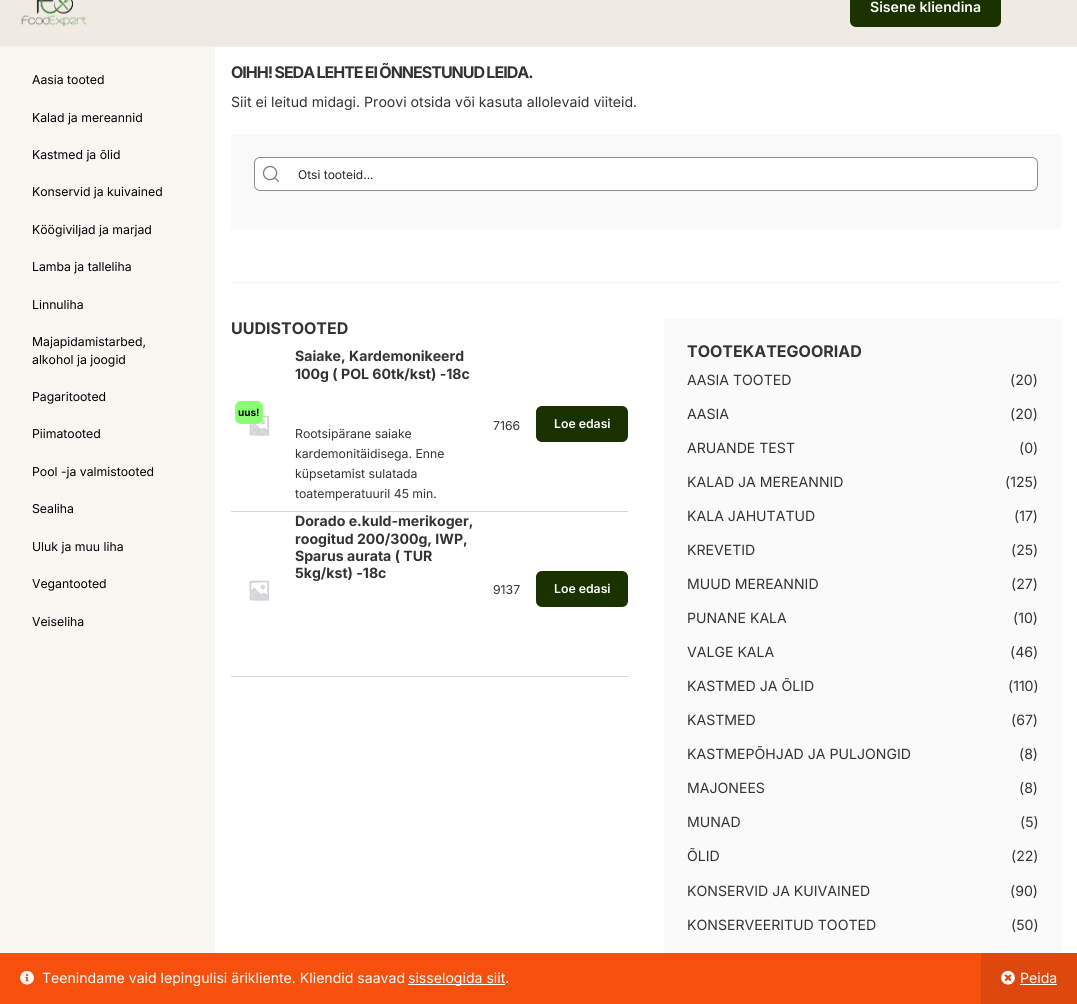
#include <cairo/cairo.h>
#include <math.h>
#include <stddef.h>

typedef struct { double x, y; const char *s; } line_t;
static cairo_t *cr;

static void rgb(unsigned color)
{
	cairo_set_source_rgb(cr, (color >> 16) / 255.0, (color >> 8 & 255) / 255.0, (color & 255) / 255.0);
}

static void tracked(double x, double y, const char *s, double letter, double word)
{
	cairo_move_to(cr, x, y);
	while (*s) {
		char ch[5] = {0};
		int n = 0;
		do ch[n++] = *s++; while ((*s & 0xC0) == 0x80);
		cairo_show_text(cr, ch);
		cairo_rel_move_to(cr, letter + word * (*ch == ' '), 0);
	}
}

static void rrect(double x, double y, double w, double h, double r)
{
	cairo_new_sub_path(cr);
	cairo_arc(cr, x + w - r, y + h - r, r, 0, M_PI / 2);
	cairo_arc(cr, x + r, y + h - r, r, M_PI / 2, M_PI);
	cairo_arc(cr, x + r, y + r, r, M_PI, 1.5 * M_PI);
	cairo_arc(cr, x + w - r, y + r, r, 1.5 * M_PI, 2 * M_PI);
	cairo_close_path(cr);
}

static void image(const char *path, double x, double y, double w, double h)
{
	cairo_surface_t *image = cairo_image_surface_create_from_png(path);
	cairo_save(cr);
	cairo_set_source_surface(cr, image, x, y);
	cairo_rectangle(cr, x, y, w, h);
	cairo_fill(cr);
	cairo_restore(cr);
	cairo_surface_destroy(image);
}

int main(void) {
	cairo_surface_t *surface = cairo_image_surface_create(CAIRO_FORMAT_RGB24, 1077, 1004);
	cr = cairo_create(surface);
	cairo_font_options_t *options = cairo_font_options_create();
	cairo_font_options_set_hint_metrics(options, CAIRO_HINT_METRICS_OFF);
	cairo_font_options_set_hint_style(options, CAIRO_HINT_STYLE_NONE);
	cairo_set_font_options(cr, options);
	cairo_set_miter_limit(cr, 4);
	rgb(0xffffff);
	cairo_paint(cr);
	rgb(0xefebe2);
	cairo_rectangle(cr, 0, 0, 1077, 46);
	cairo_fill(cr);
	rgb(0xf0f0f0);
	cairo_rectangle(cr, 0, 46, 1077, 1);
	cairo_fill(cr);
	image("img/1.png", 21, 0, 66, 27);
	rgb(0x193200);
	rrect(850, -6, 151, 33, 6);
	cairo_fill(cr);
	rgb(0xf8f6f1);
	cairo_rectangle(cr, 0, 47, 215, 906);
	cairo_fill(cr);
	rgb(0xf9f9f9);
	cairo_rectangle(cr, 231, 134, 830, 95);
	cairo_fill(cr);
	rgb(0xffffff);
	rrect(254, 157, 784, 34, 6);
	cairo_fill(cr);
	rrect(254.5, 157.5, 783, 33, 5.5);
	cairo_set_source_rgba(cr, 0.114, 0.114, 0.114, 0.5);
	cairo_set_line_width(cr, 1);
	cairo_stroke(cr);
	cairo_save(cr);
	cairo_rectangle(cr, 255, 158, 32, 32);
	cairo_clip(cr);
	cairo_set_source_rgba(cr, 1, 1, 1, 0.64);
	cairo_new_path(cr);
	cairo_move_to(cr, 260, 158);
	cairo_line_to(cr, 386, 158);
	cairo_line_to(cr, 386, 190);
	cairo_line_to(cr, 286, 190);
	cairo_line_to(cr, 286, 159);
	cairo_line_to(cr, 257, 159);
	cairo_close_path(cr);
	cairo_fill(cr);
	cairo_restore(cr);
	image("img/2.png", 262, 165, 18, 18);
	rgb(0xf2f2f2);
	cairo_rectangle(cr, 231, 282, 830, 1);
	cairo_fill(cr);
	rgb(0xd7d7d7);
	cairo_rectangle(cr, 231, 511, 397, 1);
	cairo_fill(cr);
	image("img/3.png", 249, 415, 21, 21);
	rgb(0x8aff73);
	rrect(235, 401, 28, 23, 6);
	cairo_fill(cr);
	rgb(0x193200);
	rrect(536, 406, 92, 36, 6);
	cairo_fill(cr);
	rgb(0xd7d7d7);
	cairo_rectangle(cr, 231, 676, 397, 1);
	cairo_fill(cr);
	image("img/3.png", 249, 580, 21, 21);
	rgb(0x193200);
	rrect(536, 571, 92, 36, 6);
	cairo_fill(cr);
	rgb(0xfafafa);
	cairo_rectangle(cr, 664, 319, 397, 634);
	cairo_fill(cr);
	rgb(0xf5510d);
	cairo_rectangle(cr, 0, 953, 981, 51);
	cairo_fill(cr);
	image("img/4.png", 20, 970, 14, 15);
	rgb(0xffffff);
	cairo_rectangle(cr, 408, 984, 97, 1);
	cairo_fill(cr);
	rgb(0xdd490c);
	cairo_rectangle(cr, 981, 953, 96, 51);
	cairo_fill(cr);
	image("img/5.png", 1001, 970, 14, 15);
	rgb(0xffffff);
	cairo_rectangle(cr, 1020, 984, 37, 1);
	cairo_fill(cr);
	cairo_select_font_face(cr, "Inter SemiBold", CAIRO_FONT_SLANT_NORMAL, CAIRO_FONT_WEIGHT_NORMAL);
	cairo_set_font_size(cr, 14.1);
	cairo_move_to(cr, 870, 12);
	cairo_show_text(cr, "Sisene kliendina");
	cairo_select_font_face(cr, "Inter", CAIRO_FONT_SLANT_NORMAL, CAIRO_FONT_WEIGHT_NORMAL);
	cairo_set_font_size(cr, 12.25);
	rgb(0x000000);
	{
		static const line_t items[] = {
			{32, 84, "Aasia tooted"},
			{32, 122, "Kalad ja mereannid"},
			{32, 159, "Kastmed ja õlid"},
			{32, 196, "Konservid ja kuivained"},
			{32, 234, "Köögiviljad ja marjad"},
			{32, 271, "Lamba ja talleliha"},
			{32, 309, "Linnuliha"},
			{32, 346, "Majapidamistarbed,"},
			{32, 364, "alkohol ja joogid"},
			{32, 401, "Pagaritooted"},
			{32, 438, "Piimatooted"},
			{32, 476, "Pool -ja valmistooted"},
			{32, 513, "Sealiha"},
			{32, 551, "Uluk ja muu liha"},
			{32, 588, "Vegantooted"},
			{32, 626, "Veiseliha"},
		};
		for (size_t i = 0; i < sizeof items / sizeof *items; i++) {
			cairo_move_to(cr, items[i].x, items[i].y);
			cairo_show_text(cr, items[i].s);
		}
	}
	cairo_select_font_face(cr, "Inter", CAIRO_FONT_SLANT_NORMAL, CAIRO_FONT_WEIGHT_BOLD);
	cairo_set_font_size(cr, 16);
	rgb(0x333333);
	tracked(231, 78, "OIHH! SEDA LEHTE EI ÕNNESTUNUD LEIDA.", -1, -0.5);
	cairo_select_font_face(cr, "Inter", CAIRO_FONT_SLANT_NORMAL, CAIRO_FONT_WEIGHT_NORMAL);
	cairo_set_font_size(cr, 14.1);
	cairo_move_to(cr, 231, 107);
	cairo_show_text(cr, "Siit ei leitud midagi. Proovi otsida või kasuta allolevaid viiteid.");
	cairo_set_font_size(cr, 12);
	rgb(0x262626);
	cairo_move_to(cr, 298, 179);
	cairo_show_text(cr, "Otsi tooteid...");
	cairo_select_font_face(cr, "Inter", CAIRO_FONT_SLANT_NORMAL, CAIRO_FONT_WEIGHT_BOLD);
	cairo_set_font_size(cr, 16);
	rgb(0x333333);
	cairo_move_to(cr, 231, 334);
	cairo_show_text(cr, "UUDISTOOTED");
	cairo_set_font_size(cr, 10);
	rgb(0x000000);
	cairo_move_to(cr, 238, 416);
	cairo_show_text(cr, "uus!");
	cairo_set_font_size(cr, 14.1);
	rgb(0x333333);
	cairo_move_to(cr, 295, 361);
	cairo_show_text(cr, "Saiake, Kardemonikeerd");
	cairo_move_to(cr, 295, 379);
	cairo_show_text(cr, "100g ( POL 60tk/kst) -18c");
	cairo_select_font_face(cr, "Inter", CAIRO_FONT_SLANT_NORMAL, CAIRO_FONT_WEIGHT_NORMAL);
	cairo_set_font_size(cr, 12.25);
	{
		static const line_t items[] = {
			{295, 438, "Rootsipärane saiake"},
			{295, 458, "kardemonitäidisega. Enne"},
			{295, 478, "küpsetamist sulatada"},
			{295, 498, "toatemperatuuril 45 min."},
			{493, 430, "7166"},
		};
		for (size_t i = 0; i < sizeof items / sizeof *items; i++) {
			cairo_move_to(cr, items[i].x, items[i].y);
			cairo_show_text(cr, items[i].s);
		}
	}
	cairo_select_font_face(cr, "Inter SemiBold", CAIRO_FONT_SLANT_NORMAL, CAIRO_FONT_WEIGHT_NORMAL);
	rgb(0xffffff);
	cairo_move_to(cr, 554, 428);
	cairo_show_text(cr, "Loe edasi");
	cairo_select_font_face(cr, "Inter", CAIRO_FONT_SLANT_NORMAL, CAIRO_FONT_WEIGHT_BOLD);
	cairo_set_font_size(cr, 14.1);
	rgb(0x333333);
	{
		static const line_t items[] = {
			{295, 526, "Dorado e.kuld-merikoger,"},
			{295, 544, "roogitud 200/300g, IWP,"},
			{295, 561, "Sparus aurata ( TUR"},
			{295, 578, "5kg/kst) -18c"},
		};
		for (size_t i = 0; i < sizeof items / sizeof *items; i++) {
			cairo_move_to(cr, items[i].x, items[i].y);
			cairo_show_text(cr, items[i].s);
		}
	}
	cairo_select_font_face(cr, "Inter", CAIRO_FONT_SLANT_NORMAL, CAIRO_FONT_WEIGHT_NORMAL);
	cairo_set_font_size(cr, 12.25);
	cairo_move_to(cr, 493, 594);
	cairo_show_text(cr, "9137");
	cairo_select_font_face(cr, "Inter SemiBold", CAIRO_FONT_SLANT_NORMAL, CAIRO_FONT_WEIGHT_NORMAL);
	rgb(0xffffff);
	cairo_move_to(cr, 554, 593);
	cairo_show_text(cr, "Loe edasi");
	cairo_select_font_face(cr, "Inter", CAIRO_FONT_SLANT_NORMAL, CAIRO_FONT_WEIGHT_BOLD);
	cairo_set_font_size(cr, 16);
	rgb(0x333333);
	cairo_move_to(cr, 687, 357);
	cairo_show_text(cr, "TOOTEKATEGOORIAD");
	cairo_select_font_face(cr, "Inter", CAIRO_FONT_SLANT_NORMAL, CAIRO_FONT_WEIGHT_NORMAL);
	cairo_set_font_size(cr, 14.1);
	{
		static const line_t items[] = {
			{687, 385, "AASIA TOOTED"},
			{1010, 385, "(20)"},
			{687, 419, "AASIA"},
			{1010, 419, "(20)"},
			{687, 453, "ARUANDE TEST"},
			{1019, 453, "(0)"},
			{687, 487, "KALAD JA MEREANNID"},
			{1005, 487, "(125)"},
			{687, 521, "KALA JAHUTATUD"},
			{1014, 521, "(17)"},
			{687, 555, "KREVETID"},
			{1011, 555, "(25)"},
			{687, 589, "MUUD MEREANNID"},
			{1011, 589, "(27)"},
			{687, 623, "PUNANE KALA"},
			{1013, 623, "(10)"},
			{687, 657, "VALGE KALA"},
			{1010, 657, "(46)"},
			{687, 691, "KASTMED JA ÕLID"},
			{1008, 691, "(110)"},
			{687, 725, "KASTMED"},
			{1011, 725, "(67)"},
			{687, 759, "KASTMEPÕHJAD JA PULJONGID"},
			{1019, 759, "(8)"},
			{687, 793, "MAJONEES"},
			{1019, 793, "(8)"},
			{687, 827, "MUNAD"},
			{1020, 827, "(5)"},
			{687, 861, "ÕLID"},
			{1011, 861, "(22)"},
			{687, 896, "KONSERVID JA KUIVAINED"},
			{1010, 896, "(90)"},
			{687, 930, "KONSERVEERITUD TOOTED"},
			{1011, 930, "(50)"},
		};
		for (size_t i = 0; i < sizeof items / sizeof *items; i++) {
			cairo_move_to(cr, items[i].x, items[i].y);
			cairo_show_text(cr, items[i].s);
		}
	}
	rgb(0xffffff);
	{
		static const line_t items[] = {
			{42, 983, "Teenindame vaid lepingulisi ärikliente. Kliendid saavad"},
			{408, 983, "sisselogida siit."},
			{1020, 983, "Peida"},
		};
		for (size_t i = 0; i < sizeof items / sizeof *items; i++) {
			cairo_move_to(cr, items[i].x, items[i].y);
			cairo_show_text(cr, items[i].s);
		}
	}
	cairo_surface_write_to_png(surface, "page.png");
	cairo_font_options_destroy(options);
	cairo_destroy(cr);
	cairo_surface_destroy(surface);
	return 0;
}
